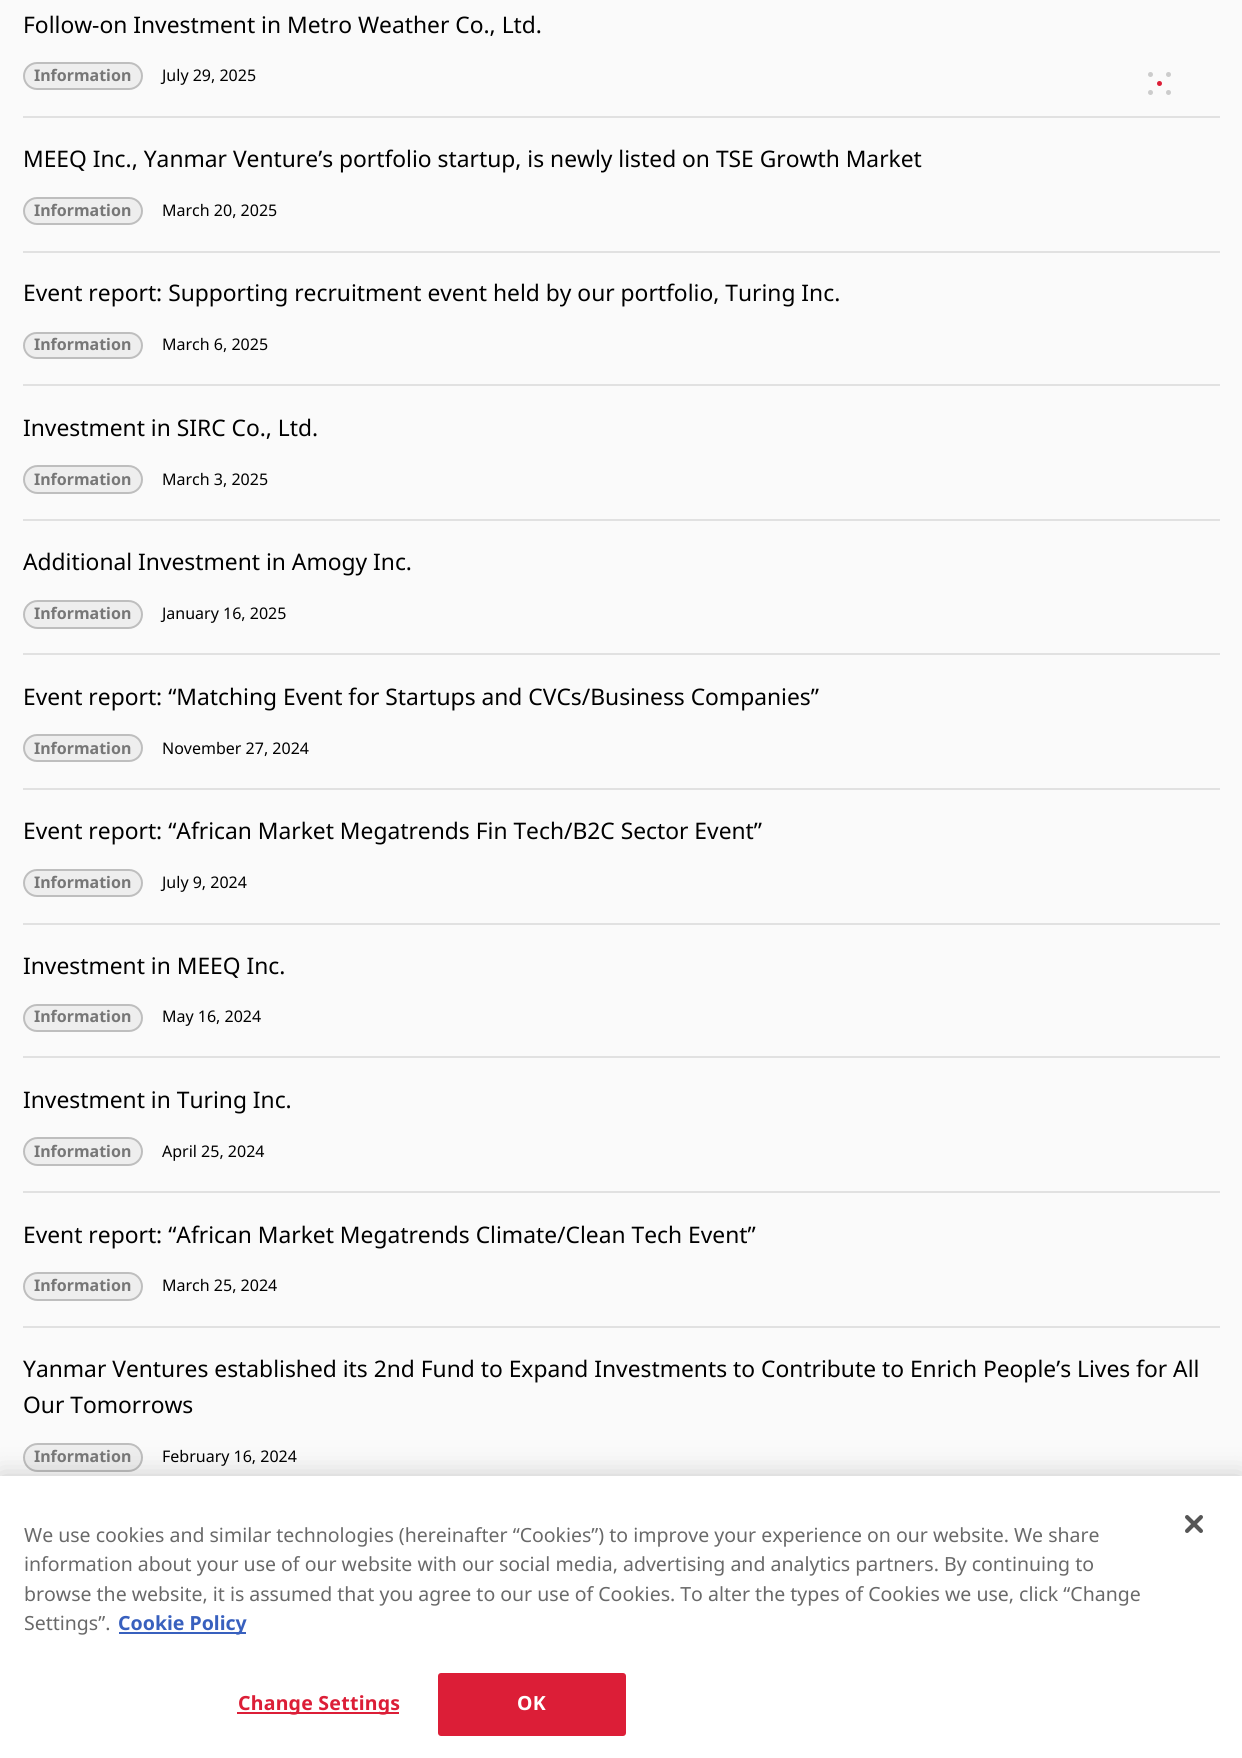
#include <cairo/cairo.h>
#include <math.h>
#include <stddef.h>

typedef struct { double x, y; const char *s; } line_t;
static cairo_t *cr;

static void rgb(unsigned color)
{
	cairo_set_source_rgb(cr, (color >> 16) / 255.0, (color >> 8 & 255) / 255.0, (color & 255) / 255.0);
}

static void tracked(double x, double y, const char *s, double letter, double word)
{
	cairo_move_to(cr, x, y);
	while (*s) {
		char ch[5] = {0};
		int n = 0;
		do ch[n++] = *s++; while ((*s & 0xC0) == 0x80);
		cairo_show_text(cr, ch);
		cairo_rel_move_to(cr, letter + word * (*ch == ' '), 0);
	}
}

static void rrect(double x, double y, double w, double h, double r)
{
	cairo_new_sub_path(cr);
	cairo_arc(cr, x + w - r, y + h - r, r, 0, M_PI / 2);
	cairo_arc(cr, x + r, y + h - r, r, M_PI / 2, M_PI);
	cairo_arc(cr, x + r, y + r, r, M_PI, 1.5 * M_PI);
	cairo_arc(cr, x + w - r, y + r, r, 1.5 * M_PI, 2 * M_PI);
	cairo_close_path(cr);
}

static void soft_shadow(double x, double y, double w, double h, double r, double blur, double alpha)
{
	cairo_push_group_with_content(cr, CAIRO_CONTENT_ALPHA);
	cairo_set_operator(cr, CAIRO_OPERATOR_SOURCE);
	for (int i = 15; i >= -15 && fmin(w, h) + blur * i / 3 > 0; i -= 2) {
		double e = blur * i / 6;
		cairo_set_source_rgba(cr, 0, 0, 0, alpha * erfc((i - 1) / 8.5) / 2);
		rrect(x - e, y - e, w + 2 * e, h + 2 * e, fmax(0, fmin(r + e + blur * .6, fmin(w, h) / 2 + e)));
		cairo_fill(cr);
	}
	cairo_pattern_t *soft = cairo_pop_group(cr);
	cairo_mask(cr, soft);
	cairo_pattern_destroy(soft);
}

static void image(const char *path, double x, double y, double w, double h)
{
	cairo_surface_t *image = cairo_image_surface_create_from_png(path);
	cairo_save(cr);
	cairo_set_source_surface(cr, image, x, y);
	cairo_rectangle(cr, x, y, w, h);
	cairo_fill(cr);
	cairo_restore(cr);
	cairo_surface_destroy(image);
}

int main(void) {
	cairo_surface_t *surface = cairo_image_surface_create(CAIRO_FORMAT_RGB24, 1242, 1758);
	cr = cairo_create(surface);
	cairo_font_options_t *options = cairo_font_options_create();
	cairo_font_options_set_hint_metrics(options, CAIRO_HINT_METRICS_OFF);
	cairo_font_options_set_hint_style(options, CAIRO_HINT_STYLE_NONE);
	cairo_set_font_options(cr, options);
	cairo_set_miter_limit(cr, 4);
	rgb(0xfafafa);
	cairo_paint(cr);
	rgb(0xe1e1e1);
	cairo_rectangle(cr, 23, 116, 1197, 2);
	cairo_fill(cr);
	rgb(0xeeeeee);
	rrect(23, 62, 120, 28, 14);
	cairo_fill(cr);
	rrect(24, 63, 118, 26, 13);
	cairo_set_source_rgba(cr, 0, 0, 0, 0.2);
	cairo_stroke(cr);
	rgb(0xe1e1e1);
	cairo_rectangle(cr, 23, 251, 1197, 2);
	cairo_fill(cr);
	rgb(0xeeeeee);
	rrect(23, 197, 120, 28, 14);
	cairo_fill(cr);
	rrect(24, 198, 118, 26, 13);
	cairo_set_source_rgba(cr, 0, 0, 0, 0.2);
	cairo_stroke(cr);
	rgb(0xe1e1e1);
	cairo_rectangle(cr, 23, 384, 1197, 2);
	cairo_fill(cr);
	rgb(0xeeeeee);
	rrect(23, 332, 120, 27, 13.5);
	cairo_fill(cr);
	rrect(24, 333, 118, 25, 12.5);
	cairo_set_source_rgba(cr, 0, 0, 0, 0.2);
	cairo_stroke(cr);
	rgb(0xe1e1e1);
	cairo_rectangle(cr, 23, 519, 1197, 2);
	cairo_fill(cr);
	rgb(0xeeeeee);
	rrect(23, 465, 120, 29, 14.5);
	cairo_fill(cr);
	rrect(24, 466, 118, 27, 13.5);
	cairo_set_source_rgba(cr, 0, 0, 0, 0.2);
	cairo_stroke(cr);
	rgb(0xe1e1e1);
	cairo_rectangle(cr, 23, 653, 1197, 2);
	cairo_fill(cr);
	rgb(0xeeeeee);
	rrect(23, 600, 120, 29, 14.5);
	cairo_fill(cr);
	rrect(24, 601, 118, 27, 13.5);
	cairo_set_source_rgba(cr, 0, 0, 0, 0.2);
	cairo_stroke(cr);
	rgb(0xe1e1e1);
	cairo_rectangle(cr, 23, 788, 1197, 2);
	cairo_fill(cr);
	rgb(0xeeeeee);
	rrect(23, 734, 120, 28, 14);
	cairo_fill(cr);
	rrect(24, 735, 118, 26, 13);
	cairo_set_source_rgba(cr, 0, 0, 0, 0.2);
	cairo_stroke(cr);
	rgb(0xe1e1e1);
	cairo_rectangle(cr, 23, 923, 1197, 2);
	cairo_fill(cr);
	rgb(0xeeeeee);
	rrect(23, 869, 120, 28, 14);
	cairo_fill(cr);
	rrect(24, 870, 118, 26, 13);
	cairo_set_source_rgba(cr, 0, 0, 0, 0.2);
	cairo_stroke(cr);
	rgb(0xe1e1e1);
	cairo_rectangle(cr, 23, 1056, 1197, 2);
	cairo_fill(cr);
	rgb(0xeeeeee);
	rrect(23, 1004, 120, 28, 14);
	cairo_fill(cr);
	rrect(24, 1005, 118, 26, 13);
	cairo_set_source_rgba(cr, 0, 0, 0, 0.2);
	cairo_stroke(cr);
	rgb(0xe1e1e1);
	cairo_rectangle(cr, 23, 1191, 1197, 2);
	cairo_fill(cr);
	rgb(0xeeeeee);
	rrect(23, 1137, 120, 29, 14.5);
	cairo_fill(cr);
	rrect(24, 1138, 118, 27, 13.5);
	cairo_set_source_rgba(cr, 0, 0, 0, 0.2);
	cairo_stroke(cr);
	rgb(0xe1e1e1);
	cairo_rectangle(cr, 23, 1326, 1197, 2);
	cairo_fill(cr);
	rgb(0xeeeeee);
	rrect(23, 1272, 120, 29, 14.5);
	cairo_fill(cr);
	rrect(24, 1273, 118, 27, 13.5);
	cairo_set_source_rgba(cr, 0, 0, 0, 0.2);
	cairo_stroke(cr);
	rgb(0xeeeeee);
	rrect(23, 1443, 120, 29, 14.5);
	cairo_fill(cr);
	rrect(24, 1444, 118, 27, 13.5);
	cairo_set_source_rgba(cr, 0, 0, 0, 0.2);
	cairo_stroke(cr);
	rgb(0xcccccc);
	cairo_arc(cr, 1150.5, 74.5, 2.5, 0, 2 * M_PI);
	cairo_fill(cr);
	cairo_arc(cr, 1168.5, 74.5, 2.5, 0, 2 * M_PI);
	cairo_fill(cr);
	rgb(0xdc1e37);
	cairo_arc(cr, 1159.5, 83.5, 2.5, 0, 2 * M_PI);
	cairo_fill(cr);
	rgb(0xcccccc);
	cairo_arc(cr, 1150.5, 92.5, 2.5, 0, 2 * M_PI);
	cairo_fill(cr);
	cairo_arc(cr, 1168.5, 92.5, 2.5, 0, 2 * M_PI);
	cairo_fill(cr);
	rgb(0x000000);
	soft_shadow(0, 1476, 1242, 282, 0, 13.5, 0.2);
	rgb(0xffffff);
	cairo_rectangle(cr, 0, 1476, 1242, 282);
	cairo_fill(cr);
	image("img/1.png", 1185, 1515, 18, 18);
	rgb(0x3860be);
	cairo_rectangle(cr, 119, 1632, 127, 2);
	cairo_fill(cr);
	rgb(0xdc1e37);
	cairo_rectangle(cr, 237, 1712, 162, 2);
	cairo_fill(cr);
	rrect(439, 1674, 186, 61, 2);
	cairo_fill_preserve(cr);
	cairo_stroke(cr);
	cairo_select_font_face(cr, "Noto Sans", CAIRO_FONT_SLANT_NORMAL, CAIRO_FONT_WEIGHT_NORMAL);
	cairo_set_font_size(cr, 22.8);
	rgb(0x000000);
	cairo_move_to(cr, 23, 33);
	cairo_show_text(cr, "Follow-on Investment in Metro Weather Co., Ltd.");
	cairo_select_font_face(cr, "Noto Sans", CAIRO_FONT_SLANT_NORMAL, CAIRO_FONT_WEIGHT_BOLD);
	cairo_set_font_size(cr, 16);
	rgb(0x777777);
	cairo_move_to(cr, 34, 81);
	cairo_show_text(cr, "Information");
	cairo_select_font_face(cr, "Noto Sans", CAIRO_FONT_SLANT_NORMAL, CAIRO_FONT_WEIGHT_NORMAL);
	rgb(0x000000);
	cairo_move_to(cr, 162, 81);
	cairo_show_text(cr, "July 29, 2025");
	cairo_set_font_size(cr, 22.8);
	cairo_move_to(cr, 23, 167);
	cairo_show_text(cr, "MEEQ Inc., Yanmar Venture’s portfolio startup, is newly listed on TSE Growth Market");
	cairo_select_font_face(cr, "Noto Sans", CAIRO_FONT_SLANT_NORMAL, CAIRO_FONT_WEIGHT_BOLD);
	cairo_set_font_size(cr, 16);
	rgb(0x777777);
	cairo_move_to(cr, 34, 216);
	cairo_show_text(cr, "Information");
	cairo_select_font_face(cr, "Noto Sans", CAIRO_FONT_SLANT_NORMAL, CAIRO_FONT_WEIGHT_NORMAL);
	rgb(0x000000);
	cairo_move_to(cr, 162, 216);
	cairo_show_text(cr, "March 20, 2025");
	cairo_set_font_size(cr, 22.8);
	cairo_move_to(cr, 23, 301);
	cairo_show_text(cr, "Event report: Supporting recruitment event held by our portfolio, Turing Inc.");
	cairo_select_font_face(cr, "Noto Sans", CAIRO_FONT_SLANT_NORMAL, CAIRO_FONT_WEIGHT_BOLD);
	cairo_set_font_size(cr, 16);
	rgb(0x777777);
	cairo_move_to(cr, 34, 350);
	cairo_show_text(cr, "Information");
	cairo_select_font_face(cr, "Noto Sans", CAIRO_FONT_SLANT_NORMAL, CAIRO_FONT_WEIGHT_NORMAL);
	rgb(0x000000);
	cairo_move_to(cr, 162, 350);
	cairo_show_text(cr, "March 6, 2025");
	cairo_set_font_size(cr, 22.8);
	cairo_move_to(cr, 23, 436);
	cairo_show_text(cr, "Investment in SIRC Co., Ltd.");
	cairo_select_font_face(cr, "Noto Sans", CAIRO_FONT_SLANT_NORMAL, CAIRO_FONT_WEIGHT_BOLD);
	cairo_set_font_size(cr, 16);
	rgb(0x777777);
	cairo_move_to(cr, 34, 485);
	cairo_show_text(cr, "Information");
	cairo_select_font_face(cr, "Noto Sans", CAIRO_FONT_SLANT_NORMAL, CAIRO_FONT_WEIGHT_NORMAL);
	rgb(0x000000);
	cairo_move_to(cr, 162, 485);
	cairo_show_text(cr, "March 3, 2025");
	cairo_set_font_size(cr, 22.8);
	cairo_move_to(cr, 23, 570);
	cairo_show_text(cr, "Additional Investment in Amogy Inc.");
	cairo_select_font_face(cr, "Noto Sans", CAIRO_FONT_SLANT_NORMAL, CAIRO_FONT_WEIGHT_BOLD);
	cairo_set_font_size(cr, 16);
	rgb(0x777777);
	cairo_move_to(cr, 34, 619);
	cairo_show_text(cr, "Information");
	cairo_select_font_face(cr, "Noto Sans", CAIRO_FONT_SLANT_NORMAL, CAIRO_FONT_WEIGHT_NORMAL);
	rgb(0x000000);
	cairo_move_to(cr, 162, 619);
	cairo_show_text(cr, "January 16, 2025");
	cairo_set_font_size(cr, 22.8);
	cairo_move_to(cr, 23, 705);
	cairo_show_text(cr, "Event report: “Matching Event for Startups and CVCs/Business Companies”");
	cairo_select_font_face(cr, "Noto Sans", CAIRO_FONT_SLANT_NORMAL, CAIRO_FONT_WEIGHT_BOLD);
	cairo_set_font_size(cr, 16);
	rgb(0x777777);
	cairo_move_to(cr, 34, 754);
	cairo_show_text(cr, "Information");
	cairo_select_font_face(cr, "Noto Sans", CAIRO_FONT_SLANT_NORMAL, CAIRO_FONT_WEIGHT_NORMAL);
	rgb(0x000000);
	cairo_move_to(cr, 162, 754);
	cairo_show_text(cr, "November 27, 2024");
	cairo_set_font_size(cr, 22.8);
	cairo_move_to(cr, 23, 839);
	cairo_show_text(cr, "Event report: “African Market Megatrends Fin Tech/B2C Sector Event”");
	cairo_select_font_face(cr, "Noto Sans", CAIRO_FONT_SLANT_NORMAL, CAIRO_FONT_WEIGHT_BOLD);
	cairo_set_font_size(cr, 16);
	rgb(0x777777);
	cairo_move_to(cr, 34, 888);
	cairo_show_text(cr, "Information");
	cairo_select_font_face(cr, "Noto Sans", CAIRO_FONT_SLANT_NORMAL, CAIRO_FONT_WEIGHT_NORMAL);
	rgb(0x000000);
	cairo_move_to(cr, 162, 888);
	cairo_show_text(cr, "July 9, 2024");
	cairo_set_font_size(cr, 22.8);
	cairo_move_to(cr, 23, 974);
	cairo_show_text(cr, "Investment in MEEQ Inc.");
	cairo_select_font_face(cr, "Noto Sans", CAIRO_FONT_SLANT_NORMAL, CAIRO_FONT_WEIGHT_BOLD);
	cairo_set_font_size(cr, 16);
	rgb(0x777777);
	cairo_move_to(cr, 34, 1022);
	cairo_show_text(cr, "Information");
	cairo_select_font_face(cr, "Noto Sans", CAIRO_FONT_SLANT_NORMAL, CAIRO_FONT_WEIGHT_NORMAL);
	rgb(0x000000);
	cairo_move_to(cr, 162, 1022);
	cairo_show_text(cr, "May 16, 2024");
	cairo_set_font_size(cr, 22.8);
	cairo_move_to(cr, 23, 1108);
	cairo_show_text(cr, "Investment in Turing Inc.");
	cairo_select_font_face(cr, "Noto Sans", CAIRO_FONT_SLANT_NORMAL, CAIRO_FONT_WEIGHT_BOLD);
	cairo_set_font_size(cr, 16);
	rgb(0x777777);
	cairo_move_to(cr, 34, 1157);
	cairo_show_text(cr, "Information");
	cairo_select_font_face(cr, "Noto Sans", CAIRO_FONT_SLANT_NORMAL, CAIRO_FONT_WEIGHT_NORMAL);
	rgb(0x000000);
	cairo_move_to(cr, 162, 1157);
	cairo_show_text(cr, "April 25, 2024");
	cairo_set_font_size(cr, 22.8);
	cairo_move_to(cr, 23, 1243);
	cairo_show_text(cr, "Event report: “African Market Megatrends Climate/Clean Tech Event”");
	cairo_select_font_face(cr, "Noto Sans", CAIRO_FONT_SLANT_NORMAL, CAIRO_FONT_WEIGHT_BOLD);
	cairo_set_font_size(cr, 16);
	rgb(0x777777);
	cairo_move_to(cr, 34, 1291);
	cairo_show_text(cr, "Information");
	cairo_select_font_face(cr, "Noto Sans", CAIRO_FONT_SLANT_NORMAL, CAIRO_FONT_WEIGHT_NORMAL);
	rgb(0x000000);
	cairo_move_to(cr, 162, 1291);
	cairo_show_text(cr, "March 25, 2024");
	cairo_set_font_size(cr, 22.8);
	cairo_move_to(cr, 23, 1377);
	cairo_show_text(cr, "Yanmar Ventures established its 2nd Fund to Expand Investments to Contribute to Enrich People’s Lives for All");
	cairo_move_to(cr, 23, 1413);
	cairo_show_text(cr, "Our Tomorrows");
	cairo_select_font_face(cr, "Noto Sans", CAIRO_FONT_SLANT_NORMAL, CAIRO_FONT_WEIGHT_BOLD);
	cairo_set_font_size(cr, 16);
	rgb(0x777777);
	cairo_move_to(cr, 34, 1462);
	cairo_show_text(cr, "Information");
	cairo_select_font_face(cr, "Noto Sans", CAIRO_FONT_SLANT_NORMAL, CAIRO_FONT_WEIGHT_NORMAL);
	rgb(0x000000);
	cairo_move_to(cr, 162, 1462);
	cairo_show_text(cr, "February 16, 2024");
	cairo_set_font_size(cr, 19.5);
	rgb(0x696969);
	{
		static const line_t items[] = {
			{24, 1542, "We use cookies and similar technologies (hereinafter “Cookies”) to improve your experience on our website. We share"},
			{24, 1571, "information about your use of our website with our social media, advertising and analytics partners. By continuing to"},
			{24, 1601, "browse the website, it is assumed that you agree to our use of Cookies. To alter the types of Cookies we use, click “Change"},
			{24, 1630, "Settings”."},
		};
		for (size_t i = 0; i < sizeof items / sizeof *items; i++) {
			cairo_move_to(cr, items[i].x, items[i].y);
			cairo_show_text(cr, items[i].s);
		}
	}
	cairo_select_font_face(cr, "Noto Sans", CAIRO_FONT_SLANT_NORMAL, CAIRO_FONT_WEIGHT_BOLD);
	rgb(0x3860be);
	cairo_move_to(cr, 118, 1630);
	cairo_show_text(cr, "Cookie Policy");
	rgb(0xdc1e37);
	tracked(238, 1710, "Change Settings", 0.25, 0);
	rgb(0xffffff);
	tracked(517, 1710, "OK", 0.25, 0);
	cairo_surface_write_to_png(surface, "page.png");
	cairo_font_options_destroy(options);
	cairo_destroy(cr);
	cairo_surface_destroy(surface);
	return 0;
}
